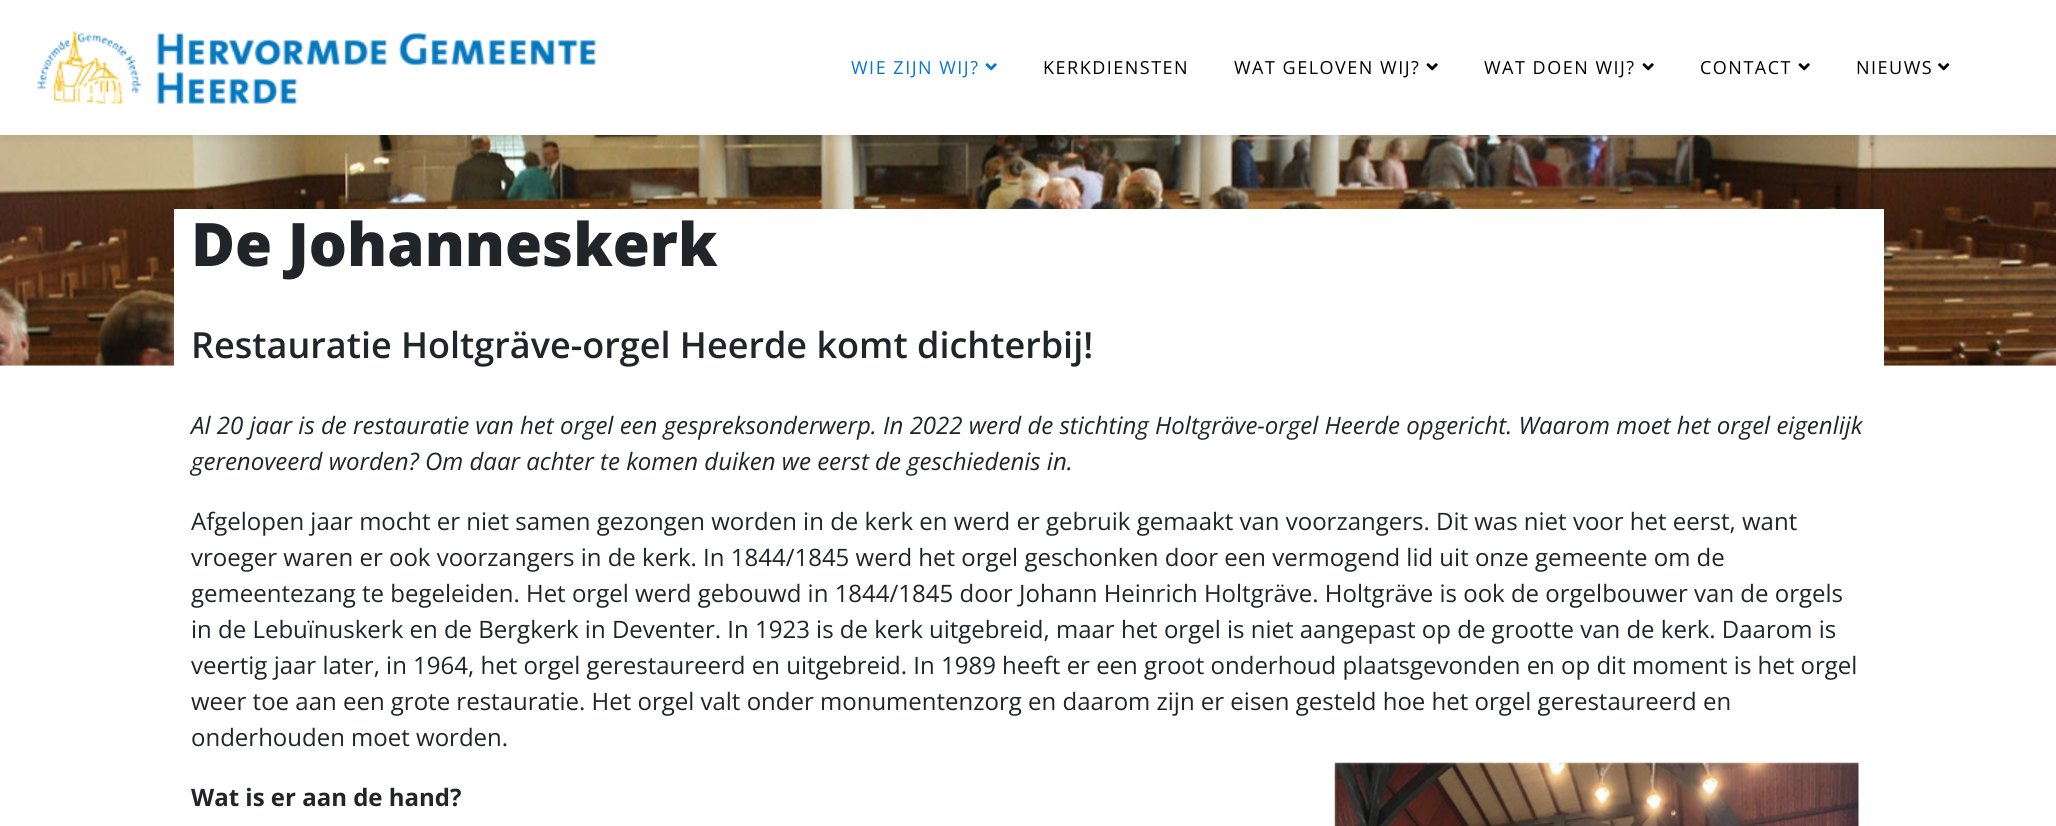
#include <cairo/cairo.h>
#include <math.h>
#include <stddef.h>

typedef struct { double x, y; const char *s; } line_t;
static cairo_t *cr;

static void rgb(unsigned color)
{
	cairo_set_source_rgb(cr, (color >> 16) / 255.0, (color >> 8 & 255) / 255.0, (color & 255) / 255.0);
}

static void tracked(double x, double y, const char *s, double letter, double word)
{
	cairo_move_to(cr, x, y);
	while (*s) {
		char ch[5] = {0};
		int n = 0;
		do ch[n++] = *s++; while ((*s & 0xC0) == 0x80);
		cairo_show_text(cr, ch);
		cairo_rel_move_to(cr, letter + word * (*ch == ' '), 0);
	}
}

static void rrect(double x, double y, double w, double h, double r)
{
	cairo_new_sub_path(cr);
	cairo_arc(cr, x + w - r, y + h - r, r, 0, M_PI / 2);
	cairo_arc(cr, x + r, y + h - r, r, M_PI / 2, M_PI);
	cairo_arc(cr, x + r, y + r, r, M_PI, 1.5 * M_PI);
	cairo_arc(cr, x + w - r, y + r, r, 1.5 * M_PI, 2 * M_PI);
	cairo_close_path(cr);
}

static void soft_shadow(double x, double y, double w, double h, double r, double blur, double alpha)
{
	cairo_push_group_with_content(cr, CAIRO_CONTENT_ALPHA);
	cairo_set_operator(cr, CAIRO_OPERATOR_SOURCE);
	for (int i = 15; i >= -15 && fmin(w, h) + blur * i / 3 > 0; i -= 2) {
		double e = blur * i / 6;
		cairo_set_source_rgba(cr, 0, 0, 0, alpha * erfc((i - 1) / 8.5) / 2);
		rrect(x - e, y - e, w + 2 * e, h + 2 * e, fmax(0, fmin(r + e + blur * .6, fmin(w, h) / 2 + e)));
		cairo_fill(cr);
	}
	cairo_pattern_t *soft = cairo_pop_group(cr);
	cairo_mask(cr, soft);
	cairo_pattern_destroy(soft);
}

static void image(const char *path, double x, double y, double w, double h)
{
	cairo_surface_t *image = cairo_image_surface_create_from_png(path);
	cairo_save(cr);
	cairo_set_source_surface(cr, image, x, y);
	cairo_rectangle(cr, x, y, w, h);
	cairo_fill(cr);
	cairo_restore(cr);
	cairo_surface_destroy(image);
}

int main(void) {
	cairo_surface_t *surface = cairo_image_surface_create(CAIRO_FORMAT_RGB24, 2056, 826);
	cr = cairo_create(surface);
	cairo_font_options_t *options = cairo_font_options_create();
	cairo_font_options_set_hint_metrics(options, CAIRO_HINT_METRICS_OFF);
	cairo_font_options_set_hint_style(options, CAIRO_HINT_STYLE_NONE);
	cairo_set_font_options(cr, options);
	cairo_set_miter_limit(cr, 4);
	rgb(0xffffff);
	cairo_paint(cr);
	image("img/5.png", 0, 135, 2056, 231);
	rgb(0x000000);
	soft_shadow(0, 5, 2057, 135, 0, 2, 0.05);
	rgb(0xffffff);
	cairo_rectangle(cr, 0, 3, 2056, 132);
	cairo_fill(cr);
	image("img/1.png", 37, 31, 559, 73);
	image("img/2.png", 985, 63, 12, 8);
	image("img/3.png", 1426, 63, 12, 8);
	image("img/3.png", 1642, 63, 12, 8);
	image("img/3.png", 1798, 63, 12, 8);
	image("img/4.png", 1938, 63, 12, 8);
	cairo_rectangle(cr, 174, 209, 1710, 157);
	cairo_fill(cr);
	image("img/6.png", 1334, 762, 525, 64);
	cairo_select_font_face(cr, "Open Sans", CAIRO_FONT_SLANT_NORMAL, CAIRO_FONT_WEIGHT_NORMAL);
	cairo_set_font_size(cr, 18);
	rgb(0x0477db);
	tracked(851, 74, "WIE ZIJN WIJ?", 1.5, 0);
	rgb(0x000000);
	{
		static const line_t items[] = {
			{1043, 74, "KERKDIENSTEN"},
			{1234, 74, "WAT GELOVEN WIJ?"},
			{1484, 74, "WAT DOEN WIJ?"},
			{1700, 74, "CONTACT"},
			{1856, 74, "NIEUWS"},
		};
		for (size_t i = 0; i < sizeof items / sizeof *items; i++) {
			tracked(items[i].x, items[i].y, items[i].s, 1.5, 0);
		}
	}
	cairo_select_font_face(cr, "Open Sans ExtraBold", CAIRO_FONT_SLANT_NORMAL, CAIRO_FONT_WEIGHT_NORMAL);
	cairo_set_font_size(cr, 60);
	rgb(0x212529);
	cairo_move_to(cr, 191, 266);
	cairo_show_text(cr, "De Johanneskerk");
	cairo_select_font_face(cr, "Open Sans SemiBold", CAIRO_FONT_SLANT_NORMAL, CAIRO_FONT_WEIGHT_NORMAL);
	cairo_set_font_size(cr, 36);
	cairo_move_to(cr, 191, 358);
	cairo_show_text(cr, "Restauratie Holtgräve-orgel Heerde komt dichterbij!");
	cairo_select_font_face(cr, "Open Sans", CAIRO_FONT_SLANT_ITALIC, CAIRO_FONT_WEIGHT_NORMAL);
	cairo_set_font_size(cr, 24);
	cairo_move_to(cr, 191, 434);
	cairo_show_text(cr, "Al 20 jaar is de restauratie van het orgel een gespreksonderwerp. In 2022 werd de stichting Holtgräve-orgel Heerde opgericht. Waarom moet het orgel eigenlijk");
	cairo_move_to(cr, 191, 470);
	cairo_show_text(cr, "gerenoveerd worden? Om daar achter te komen duiken we eerst de geschiedenis in.");
	cairo_select_font_face(cr, "Open Sans", CAIRO_FONT_SLANT_NORMAL, CAIRO_FONT_WEIGHT_NORMAL);
	{
		static const line_t items[] = {
			{191, 530, "Afgelopen jaar mocht er niet samen gezongen worden in de kerk en werd er gebruik gemaakt van voorzangers. Dit was niet voor het eerst, want"},
			{191, 566, "vroeger waren er ook voorzangers in de kerk. In 1844/1845 werd het orgel geschonken door een vermogend lid uit onze gemeente om de"},
			{191, 602, "gemeentezang te begeleiden. Het orgel werd gebouwd in 1844/1845 door Johann Heinrich Holtgräve. Holtgräve is ook de orgelbouwer van de orgels"},
			{191, 638, "in de Lebuïnuskerk en de Bergkerk in Deventer. In 1923 is de kerk uitgebreid, maar het orgel is niet aangepast op de grootte van de kerk. Daarom is"},
			{191, 674, "veertig jaar later, in 1964, het orgel gerestaureerd en uitgebreid. In 1989 heeft er een groot onderhoud plaatsgevonden en op dit moment is het orgel"},
			{191, 710, "weer toe aan een grote restauratie. Het orgel valt onder monumentenzorg en daarom zijn er eisen gesteld hoe het orgel gerestaureerd en"},
			{191, 746, "onderhouden moet worden."},
		};
		for (size_t i = 0; i < sizeof items / sizeof *items; i++) {
			cairo_move_to(cr, items[i].x, items[i].y);
			cairo_show_text(cr, items[i].s);
		}
	}
	cairo_select_font_face(cr, "Open Sans", CAIRO_FONT_SLANT_NORMAL, CAIRO_FONT_WEIGHT_BOLD);
	cairo_move_to(cr, 191, 806);
	cairo_show_text(cr, "Wat is er aan de hand?");
	cairo_surface_write_to_png(surface, "page.png");
	cairo_font_options_destroy(options);
	cairo_destroy(cr);
	cairo_surface_destroy(surface);
	return 0;
}
